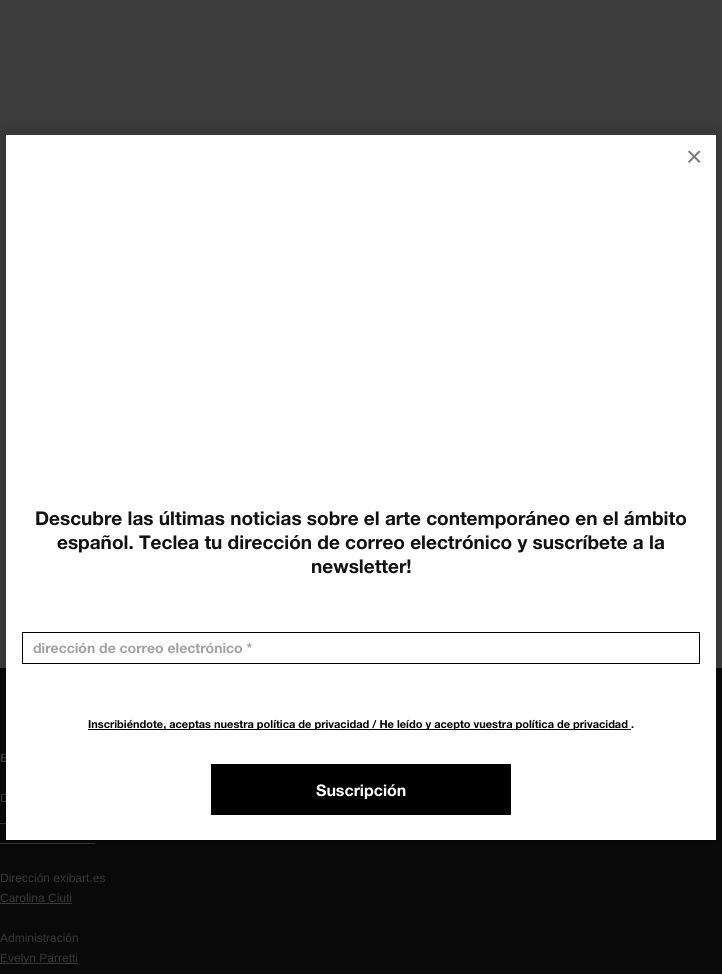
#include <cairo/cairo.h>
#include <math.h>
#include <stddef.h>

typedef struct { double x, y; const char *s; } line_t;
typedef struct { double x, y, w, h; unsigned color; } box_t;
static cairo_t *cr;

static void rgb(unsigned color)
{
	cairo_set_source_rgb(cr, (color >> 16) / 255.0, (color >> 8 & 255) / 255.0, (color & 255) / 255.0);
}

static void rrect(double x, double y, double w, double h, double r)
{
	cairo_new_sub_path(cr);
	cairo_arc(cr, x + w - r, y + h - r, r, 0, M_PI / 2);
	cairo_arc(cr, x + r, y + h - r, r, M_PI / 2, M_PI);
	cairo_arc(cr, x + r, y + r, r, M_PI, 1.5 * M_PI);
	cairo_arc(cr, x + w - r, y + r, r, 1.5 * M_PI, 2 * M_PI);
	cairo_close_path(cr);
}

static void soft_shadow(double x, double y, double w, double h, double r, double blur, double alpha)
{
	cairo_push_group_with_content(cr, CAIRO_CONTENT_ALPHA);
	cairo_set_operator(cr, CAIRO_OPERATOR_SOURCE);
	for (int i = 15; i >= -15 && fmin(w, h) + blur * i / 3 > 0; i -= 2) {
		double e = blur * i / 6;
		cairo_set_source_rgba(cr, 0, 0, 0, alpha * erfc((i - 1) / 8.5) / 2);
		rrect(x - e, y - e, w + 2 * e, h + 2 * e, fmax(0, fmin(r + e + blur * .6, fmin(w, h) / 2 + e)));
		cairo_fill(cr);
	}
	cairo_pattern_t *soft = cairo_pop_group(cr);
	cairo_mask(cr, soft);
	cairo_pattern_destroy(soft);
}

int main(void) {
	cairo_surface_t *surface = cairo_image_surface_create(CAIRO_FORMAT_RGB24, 722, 974);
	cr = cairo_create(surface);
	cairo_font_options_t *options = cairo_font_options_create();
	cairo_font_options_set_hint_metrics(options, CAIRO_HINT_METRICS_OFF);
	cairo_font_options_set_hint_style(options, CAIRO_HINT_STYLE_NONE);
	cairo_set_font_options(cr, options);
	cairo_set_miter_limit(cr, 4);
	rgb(0x3c3c3c);
	cairo_paint(cr);
	{
		static const box_t items[] = {
			{0, 668, 722, 306, 0x090909},
			{0, 823, 6, 1, 0x383838},
			{0, 843, 95, 1, 0x383838},
		};
		for (size_t i = 0; i < sizeof items / sizeof *items; i++) {
			rgb(items[i].color);
			cairo_rectangle(cr, items[i].x, items[i].y, items[i].w, items[i].h);
			cairo_fill(cr);
		}
	}
	rgb(0x000000);
	soft_shadow(6, 135, 710, 705, 0, 10, 0.2);
	rgb(0x383838);
	cairo_rectangle(cr, 0, 903, 72, 1);
	cairo_fill(cr);
	cairo_rectangle(cr, 0, 963, 78, 1);
	cairo_fill(cr);
	cairo_select_font_face(cr, "Liberation Sans", CAIRO_FONT_SLANT_NORMAL, CAIRO_FONT_WEIGHT_BOLD);
	cairo_set_font_size(cr, 12);
	cairo_move_to(cr, 0, 762);
	cairo_show_text(cr, "E");
	cairo_select_font_face(cr, "Liberation Sans", CAIRO_FONT_SLANT_NORMAL, CAIRO_FONT_WEIGHT_NORMAL);
	cairo_move_to(cr, 0, 802);
	cairo_show_text(cr, "D");
	rgb(0xffffff);
	cairo_rectangle(cr, 6, 135, 710, 705);
	cairo_fill(cr);
	cairo_set_font_size(cr, 28);
	rgb(0x7a7a7a);
	cairo_move_to(cr, 686, 166);
	cairo_show_text(cr, "×");
	rgb(0x000000);
	cairo_rectangle(cr, 211, 764, 300, 51);
	cairo_fill(cr);
	cairo_select_font_face(cr, "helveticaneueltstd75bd", CAIRO_FONT_SLANT_NORMAL, CAIRO_FONT_WEIGHT_BOLD);
	cairo_set_font_size(cr, 16);
	rgb(0xffffff);
	cairo_move_to(cr, 316, 796);
	cairo_show_text(cr, "Suscripción");
	rgb(0x000000);
	cairo_rectangle(cr, 88, 729, 543, 1);
	cairo_fill(cr);
	cairo_set_font_size(cr, 11);
	cairo_move_to(cr, 88, 728);
	cairo_show_text(cr, "Inscribiéndote, aceptas nuestra política de privacidad / He leído y acepto vuestra política de privacidad .");
	cairo_rectangle(cr, 22.5, 632.5, 677, 31);
	cairo_set_line_width(cr, 1);
	cairo_stroke(cr);
	cairo_set_font_size(cr, 14);
	rgb(0xa1a1a1);
	cairo_move_to(cr, 33, 653);
	cairo_show_text(cr, "dirección de correo electrónico *");
	cairo_set_font_size(cr, 19);
	rgb(0x111111);
	{
		static const line_t items[] = {
			{311, 573, "newsletter!"},
			{57, 549, "español. Teclea tu dirección de correo electrónico y suscríbete a la"},
			{35, 525, "Descubre las últimas noticias sobre el arte contemporáneo en el ámbito"},
		};
		for (size_t i = 0; i < sizeof items / sizeof *items; i++) {
			cairo_move_to(cr, items[i].x, items[i].y);
			cairo_show_text(cr, items[i].s);
		}
	}
	cairo_select_font_face(cr, "Liberation Sans", CAIRO_FONT_SLANT_NORMAL, CAIRO_FONT_WEIGHT_NORMAL);
	cairo_set_font_size(cr, 12);
	rgb(0x383838);
	{
		static const line_t items[] = {
			{0, 882, "Dirección exibart.es"},
			{0, 902, "Carolina Ciuti"},
			{0, 942, "Administración"},
			{0, 962, "Evelyn Parretti"},
		};
		for (size_t i = 0; i < sizeof items / sizeof *items; i++) {
			cairo_move_to(cr, items[i].x, items[i].y);
			cairo_show_text(cr, items[i].s);
		}
	}
	cairo_surface_write_to_png(surface, "page.png");
	cairo_font_options_destroy(options);
	cairo_destroy(cr);
	cairo_surface_destroy(surface);
	return 0;
}
